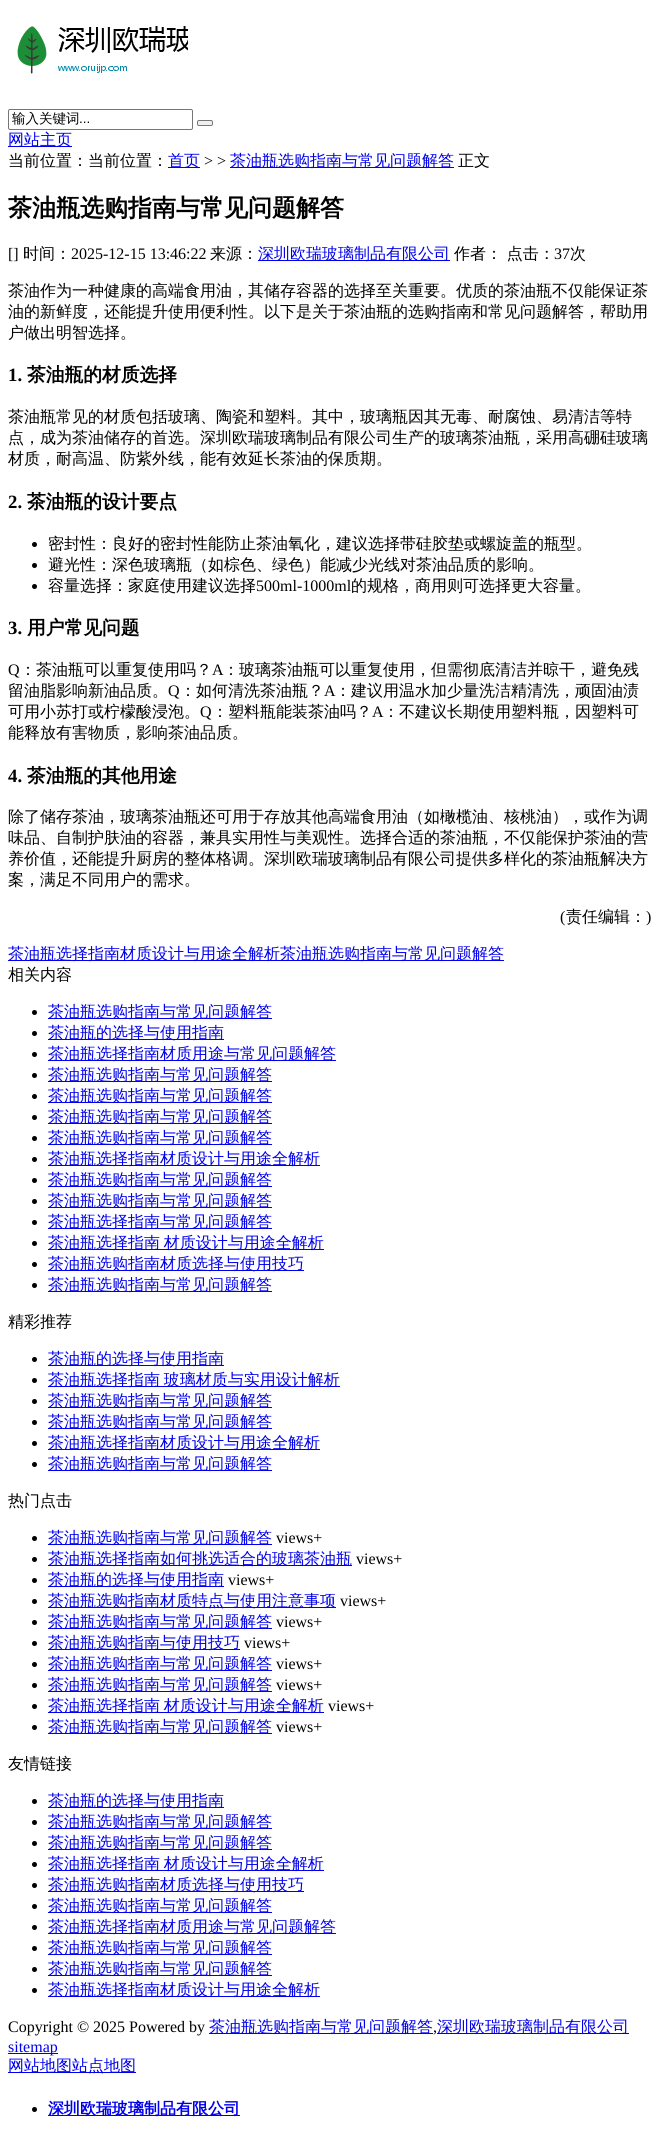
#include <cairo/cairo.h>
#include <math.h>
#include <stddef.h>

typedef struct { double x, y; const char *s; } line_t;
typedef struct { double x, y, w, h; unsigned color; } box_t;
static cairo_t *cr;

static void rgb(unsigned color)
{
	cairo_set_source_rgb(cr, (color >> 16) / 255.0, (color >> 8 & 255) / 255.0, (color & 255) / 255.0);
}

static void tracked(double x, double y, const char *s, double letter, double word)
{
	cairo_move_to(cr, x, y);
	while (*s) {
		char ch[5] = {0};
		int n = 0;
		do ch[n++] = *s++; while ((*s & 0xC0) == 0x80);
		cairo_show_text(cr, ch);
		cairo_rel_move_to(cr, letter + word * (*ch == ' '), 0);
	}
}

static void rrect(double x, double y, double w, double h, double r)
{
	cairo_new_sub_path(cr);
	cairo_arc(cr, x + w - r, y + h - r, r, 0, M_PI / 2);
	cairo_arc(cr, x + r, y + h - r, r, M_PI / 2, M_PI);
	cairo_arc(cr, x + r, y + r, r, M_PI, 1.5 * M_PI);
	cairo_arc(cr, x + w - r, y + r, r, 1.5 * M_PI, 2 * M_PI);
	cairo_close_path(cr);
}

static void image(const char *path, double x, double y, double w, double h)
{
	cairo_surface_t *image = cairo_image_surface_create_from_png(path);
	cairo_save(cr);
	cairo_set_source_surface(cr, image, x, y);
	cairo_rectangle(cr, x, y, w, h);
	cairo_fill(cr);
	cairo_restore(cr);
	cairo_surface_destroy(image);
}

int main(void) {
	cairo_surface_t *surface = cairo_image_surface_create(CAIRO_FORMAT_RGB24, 659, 2140);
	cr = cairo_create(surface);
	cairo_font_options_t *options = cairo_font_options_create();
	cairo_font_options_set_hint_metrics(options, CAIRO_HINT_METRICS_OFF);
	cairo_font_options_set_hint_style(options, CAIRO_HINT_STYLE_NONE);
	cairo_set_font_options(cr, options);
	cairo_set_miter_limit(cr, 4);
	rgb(0xffffff);
	cairo_paint(cr);
	image("img/1.png", 17, 26, 171, 48);
	rrect(8.5, 109.5, 184, 20, 1.5);
	rgb(0x767676);
	cairo_set_line_width(cr, 1);
	cairo_stroke(cr);
	rgb(0xefefef);
	rrect(197.5, 120.5, 15, 5, 1.5);
	cairo_fill_preserve(cr);
	rgb(0x767676);
	cairo_stroke(cr);
	{
		static const box_t items[] = {
			{8, 146, 64, 1, 0x0000ee},
			{168, 167, 32, 1, 0x0000ee},
			{230, 167, 224, 1, 0x0000ee},
			{258, 260, 192, 1, 0x0000ee},
		};
		for (size_t i = 0; i < sizeof items / sizeof *items; i++) {
			rgb(items[i].color);
			cairo_rectangle(cr, items[i].x, items[i].y, items[i].w, items[i].h);
			cairo_fill(cr);
		}
	}
	rgb(0x000000);
	cairo_arc(cr, 34.5, 544.5, 2.5, 0, 2 * M_PI);
	cairo_fill(cr);
	cairo_arc(cr, 34.5, 565.5, 2.5, 0, 2 * M_PI);
	cairo_fill(cr);
	cairo_arc(cr, 34.5, 586.5, 2.5, 0, 2 * M_PI);
	cairo_fill(cr);
	rgb(0x0000ee);
	cairo_rectangle(cr, 8, 960, 496, 1);
	cairo_fill(cr);
	rgb(0x000000);
	cairo_arc(cr, 34.5, 1012.5, 2.5, 0, 2 * M_PI);
	cairo_fill(cr);
	rgb(0x0000ee);
	cairo_rectangle(cr, 48, 1018, 224, 1);
	cairo_fill(cr);
	rgb(0x000000);
	cairo_arc(cr, 34.5, 1033.5, 2.5, 0, 2 * M_PI);
	cairo_fill(cr);
	rgb(0x0000ee);
	cairo_rectangle(cr, 48, 1039, 176, 1);
	cairo_fill(cr);
	rgb(0x000000);
	cairo_arc(cr, 34.5, 1054.5, 2.5, 0, 2 * M_PI);
	cairo_fill(cr);
	rgb(0x0000ee);
	cairo_rectangle(cr, 48, 1060, 288, 1);
	cairo_fill(cr);
	rgb(0x000000);
	cairo_arc(cr, 34.5, 1075.5, 2.5, 0, 2 * M_PI);
	cairo_fill(cr);
	rgb(0x0000ee);
	cairo_rectangle(cr, 48, 1081, 224, 1);
	cairo_fill(cr);
	rgb(0x000000);
	cairo_arc(cr, 34.5, 1096.5, 2.5, 0, 2 * M_PI);
	cairo_fill(cr);
	rgb(0x0000ee);
	cairo_rectangle(cr, 48, 1102, 224, 1);
	cairo_fill(cr);
	rgb(0x000000);
	cairo_arc(cr, 34.5, 1117.5, 2.5, 0, 2 * M_PI);
	cairo_fill(cr);
	rgb(0x0000ee);
	cairo_rectangle(cr, 48, 1123, 224, 1);
	cairo_fill(cr);
	rgb(0x000000);
	cairo_arc(cr, 34.5, 1138.5, 2.5, 0, 2 * M_PI);
	cairo_fill(cr);
	rgb(0x0000ee);
	cairo_rectangle(cr, 48, 1144, 224, 1);
	cairo_fill(cr);
	rgb(0x000000);
	cairo_arc(cr, 34.5, 1159.5, 2.5, 0, 2 * M_PI);
	cairo_fill(cr);
	rgb(0x0000ee);
	cairo_rectangle(cr, 48, 1165, 272, 1);
	cairo_fill(cr);
	rgb(0x000000);
	cairo_arc(cr, 34.5, 1180.5, 2.5, 0, 2 * M_PI);
	cairo_fill(cr);
	rgb(0x0000ee);
	cairo_rectangle(cr, 48, 1186, 224, 1);
	cairo_fill(cr);
	rgb(0x000000);
	cairo_arc(cr, 34.5, 1201.5, 2.5, 0, 2 * M_PI);
	cairo_fill(cr);
	rgb(0x0000ee);
	cairo_rectangle(cr, 48, 1207, 224, 1);
	cairo_fill(cr);
	rgb(0x000000);
	cairo_arc(cr, 34.5, 1222.5, 2.5, 0, 2 * M_PI);
	cairo_fill(cr);
	rgb(0x0000ee);
	cairo_rectangle(cr, 48, 1228, 224, 1);
	cairo_fill(cr);
	rgb(0x000000);
	cairo_arc(cr, 34.5, 1243.5, 2.5, 0, 2 * M_PI);
	cairo_fill(cr);
	rgb(0x0000ee);
	cairo_rectangle(cr, 48, 1249, 276, 1);
	cairo_fill(cr);
	rgb(0x000000);
	cairo_arc(cr, 34.5, 1264.5, 2.5, 0, 2 * M_PI);
	cairo_fill(cr);
	rgb(0x0000ee);
	cairo_rectangle(cr, 48, 1270, 256, 1);
	cairo_fill(cr);
	rgb(0x000000);
	cairo_arc(cr, 34.5, 1285.5, 2.5, 0, 2 * M_PI);
	cairo_fill(cr);
	rgb(0x0000ee);
	cairo_rectangle(cr, 48, 1291, 224, 1);
	cairo_fill(cr);
	rgb(0x000000);
	cairo_arc(cr, 34.5, 1359.5, 2.5, 0, 2 * M_PI);
	cairo_fill(cr);
	rgb(0x0000ee);
	cairo_rectangle(cr, 48, 1365, 176, 1);
	cairo_fill(cr);
	rgb(0x000000);
	cairo_arc(cr, 34.5, 1380.5, 2.5, 0, 2 * M_PI);
	cairo_fill(cr);
	rgb(0x0000ee);
	cairo_rectangle(cr, 48, 1386, 292, 1);
	cairo_fill(cr);
	rgb(0x000000);
	cairo_arc(cr, 34.5, 1401.5, 2.5, 0, 2 * M_PI);
	cairo_fill(cr);
	rgb(0x0000ee);
	cairo_rectangle(cr, 48, 1407, 224, 1);
	cairo_fill(cr);
	rgb(0x000000);
	cairo_arc(cr, 34.5, 1422.5, 2.5, 0, 2 * M_PI);
	cairo_fill(cr);
	rgb(0x0000ee);
	cairo_rectangle(cr, 48, 1428, 224, 1);
	cairo_fill(cr);
	rgb(0x000000);
	cairo_arc(cr, 34.5, 1443.5, 2.5, 0, 2 * M_PI);
	cairo_fill(cr);
	rgb(0x0000ee);
	cairo_rectangle(cr, 48, 1449, 272, 1);
	cairo_fill(cr);
	rgb(0x000000);
	cairo_arc(cr, 34.5, 1464.5, 2.5, 0, 2 * M_PI);
	cairo_fill(cr);
	rgb(0x0000ee);
	cairo_rectangle(cr, 48, 1470, 224, 1);
	cairo_fill(cr);
	rgb(0x000000);
	cairo_arc(cr, 34.5, 1538.5, 2.5, 0, 2 * M_PI);
	cairo_fill(cr);
	rgb(0x0000ee);
	cairo_rectangle(cr, 48, 1544, 224, 1);
	cairo_fill(cr);
	rgb(0x000000);
	cairo_arc(cr, 34.5, 1559.5, 2.5, 0, 2 * M_PI);
	cairo_fill(cr);
	rgb(0x0000ee);
	cairo_rectangle(cr, 48, 1565, 304, 1);
	cairo_fill(cr);
	rgb(0x000000);
	cairo_arc(cr, 34.5, 1580.5, 2.5, 0, 2 * M_PI);
	cairo_fill(cr);
	rgb(0x0000ee);
	cairo_rectangle(cr, 48, 1586, 176, 1);
	cairo_fill(cr);
	rgb(0x000000);
	cairo_arc(cr, 34.5, 1601.5, 2.5, 0, 2 * M_PI);
	cairo_fill(cr);
	rgb(0x0000ee);
	cairo_rectangle(cr, 48, 1607, 288, 1);
	cairo_fill(cr);
	rgb(0x000000);
	cairo_arc(cr, 34.5, 1622.5, 2.5, 0, 2 * M_PI);
	cairo_fill(cr);
	rgb(0x0000ee);
	cairo_rectangle(cr, 48, 1628, 224, 1);
	cairo_fill(cr);
	rgb(0x000000);
	cairo_arc(cr, 34.5, 1643.5, 2.5, 0, 2 * M_PI);
	cairo_fill(cr);
	rgb(0x0000ee);
	cairo_rectangle(cr, 48, 1649, 192, 1);
	cairo_fill(cr);
	rgb(0x000000);
	cairo_arc(cr, 34.5, 1664.5, 2.5, 0, 2 * M_PI);
	cairo_fill(cr);
	rgb(0x0000ee);
	cairo_rectangle(cr, 48, 1670, 224, 1);
	cairo_fill(cr);
	rgb(0x000000);
	cairo_arc(cr, 34.5, 1685.5, 2.5, 0, 2 * M_PI);
	cairo_fill(cr);
	rgb(0x0000ee);
	cairo_rectangle(cr, 48, 1691, 224, 1);
	cairo_fill(cr);
	rgb(0x000000);
	cairo_arc(cr, 34.5, 1706.5, 2.5, 0, 2 * M_PI);
	cairo_fill(cr);
	rgb(0x0000ee);
	cairo_rectangle(cr, 48, 1712, 276, 1);
	cairo_fill(cr);
	rgb(0x000000);
	cairo_arc(cr, 34.5, 1727.5, 2.5, 0, 2 * M_PI);
	cairo_fill(cr);
	rgb(0x0000ee);
	cairo_rectangle(cr, 48, 1733, 224, 1);
	cairo_fill(cr);
	rgb(0x000000);
	cairo_arc(cr, 34.5, 1801.5, 2.5, 0, 2 * M_PI);
	cairo_fill(cr);
	rgb(0x0000ee);
	cairo_rectangle(cr, 48, 1807, 176, 1);
	cairo_fill(cr);
	rgb(0x000000);
	cairo_arc(cr, 34.5, 1822.5, 2.5, 0, 2 * M_PI);
	cairo_fill(cr);
	rgb(0x0000ee);
	cairo_rectangle(cr, 48, 1828, 224, 1);
	cairo_fill(cr);
	rgb(0x000000);
	cairo_arc(cr, 34.5, 1843.5, 2.5, 0, 2 * M_PI);
	cairo_fill(cr);
	rgb(0x0000ee);
	cairo_rectangle(cr, 48, 1849, 224, 1);
	cairo_fill(cr);
	rgb(0x000000);
	cairo_arc(cr, 34.5, 1864.5, 2.5, 0, 2 * M_PI);
	cairo_fill(cr);
	rgb(0x0000ee);
	cairo_rectangle(cr, 48, 1870, 276, 1);
	cairo_fill(cr);
	rgb(0x000000);
	cairo_arc(cr, 34.5, 1885.5, 2.5, 0, 2 * M_PI);
	cairo_fill(cr);
	rgb(0x0000ee);
	cairo_rectangle(cr, 48, 1891, 256, 1);
	cairo_fill(cr);
	rgb(0x000000);
	cairo_arc(cr, 34.5, 1906.5, 2.5, 0, 2 * M_PI);
	cairo_fill(cr);
	rgb(0x0000ee);
	cairo_rectangle(cr, 48, 1912, 224, 1);
	cairo_fill(cr);
	rgb(0x000000);
	cairo_arc(cr, 34.5, 1927.5, 2.5, 0, 2 * M_PI);
	cairo_fill(cr);
	rgb(0x0000ee);
	cairo_rectangle(cr, 48, 1933, 288, 1);
	cairo_fill(cr);
	rgb(0x000000);
	cairo_arc(cr, 34.5, 1948.5, 2.5, 0, 2 * M_PI);
	cairo_fill(cr);
	rgb(0x0000ee);
	cairo_rectangle(cr, 48, 1954, 224, 1);
	cairo_fill(cr);
	rgb(0x000000);
	cairo_arc(cr, 34.5, 1969.5, 2.5, 0, 2 * M_PI);
	cairo_fill(cr);
	rgb(0x0000ee);
	cairo_rectangle(cr, 48, 1975, 224, 1);
	cairo_fill(cr);
	rgb(0x000000);
	cairo_arc(cr, 34.5, 1990.5, 2.5, 0, 2 * M_PI);
	cairo_fill(cr);
	{
		static const box_t items[] = {
			{48, 1996, 272, 1, 0x0000ee},
			{209, 2033, 224, 1, 0x0000ee},
			{437, 2033, 192, 1, 0x0000ee},
			{8, 2053, 50, 1, 0x0000ee},
			{8, 2072, 128, 1, 0x0000ee},
		};
		for (size_t i = 0; i < sizeof items / sizeof *items; i++) {
			rgb(items[i].color);
			cairo_rectangle(cr, items[i].x, items[i].y, items[i].w, items[i].h);
			cairo_fill(cr);
		}
	}
	rgb(0x000000);
	cairo_arc(cr, 34.5, 2109.5, 2.5, 0, 2 * M_PI);
	cairo_fill(cr);
	rgb(0x0000ee);
	cairo_rectangle(cr, 48, 2115, 192, 1);
	cairo_fill(cr);
	cairo_select_font_face(cr, "WenQuanYi Zen Hei Medium", CAIRO_FONT_SLANT_NORMAL, CAIRO_FONT_WEIGHT_NORMAL);
	cairo_set_font_size(cr, 13.5);
	rgb(0x000000);
	cairo_move_to(cr, 12, 123);
	cairo_show_text(cr, "输入关键词");
	cairo_select_font_face(cr, "Liberation Sans", CAIRO_FONT_SLANT_NORMAL, CAIRO_FONT_WEIGHT_NORMAL);
	cairo_move_to(cr, 79, 123);
	cairo_show_text(cr, "...");
	cairo_select_font_face(cr, "WenQuanYi Zen Hei Medium", CAIRO_FONT_SLANT_NORMAL, CAIRO_FONT_WEIGHT_NORMAL);
	cairo_set_font_size(cr, 16);
	rgb(0x0000ee);
	cairo_move_to(cr, 8, 145);
	cairo_show_text(cr, "网站主页");
	rgb(0x000000);
	cairo_move_to(cr, 8, 166);
	cairo_show_text(cr, "当前位置：当前位置：");
	rgb(0x0000ee);
	cairo_move_to(cr, 168, 166);
	cairo_show_text(cr, "首页");
	cairo_select_font_face(cr, "Liberation Serif", CAIRO_FONT_SLANT_NORMAL, CAIRO_FONT_WEIGHT_NORMAL);
	rgb(0x000000);
	cairo_move_to(cr, 204, 166);
	cairo_show_text(cr, "> >");
	cairo_select_font_face(cr, "WenQuanYi Zen Hei Medium", CAIRO_FONT_SLANT_NORMAL, CAIRO_FONT_WEIGHT_NORMAL);
	rgb(0x0000ee);
	cairo_move_to(cr, 230, 166);
	cairo_show_text(cr, "茶油瓶选购指南与常见问题解答");
	rgb(0x000000);
	cairo_move_to(cr, 458, 166);
	cairo_show_text(cr, "正文");
	cairo_select_font_face(cr, "WenQuanYi Zen Hei", CAIRO_FONT_SLANT_NORMAL, CAIRO_FONT_WEIGHT_BOLD);
	cairo_set_font_size(cr, 24);
	cairo_move_to(cr, 8, 216);
	cairo_show_text(cr, "茶油瓶选购指南与常见问题解答");
	cairo_select_font_face(cr, "Liberation Serif", CAIRO_FONT_SLANT_NORMAL, CAIRO_FONT_WEIGHT_NORMAL);
	cairo_set_font_size(cr, 16);
	cairo_move_to(cr, 8, 259);
	cairo_show_text(cr, "[]");
	cairo_select_font_face(cr, "WenQuanYi Zen Hei Medium", CAIRO_FONT_SLANT_NORMAL, CAIRO_FONT_WEIGHT_NORMAL);
	cairo_move_to(cr, 23, 259);
	cairo_show_text(cr, "时间：");
	cairo_select_font_face(cr, "Liberation Serif", CAIRO_FONT_SLANT_NORMAL, CAIRO_FONT_WEIGHT_NORMAL);
	cairo_move_to(cr, 71, 259);
	cairo_show_text(cr, "2025-12-15 13:46:22");
	cairo_select_font_face(cr, "WenQuanYi Zen Hei Medium", CAIRO_FONT_SLANT_NORMAL, CAIRO_FONT_WEIGHT_NORMAL);
	cairo_move_to(cr, 210, 259);
	cairo_show_text(cr, "来源：");
	rgb(0x0000ee);
	cairo_move_to(cr, 258, 259);
	cairo_show_text(cr, "深圳欧瑞玻璃制品有限公司");
	rgb(0x000000);
	cairo_move_to(cr, 454, 259);
	cairo_show_text(cr, "作者： 点击：");
	cairo_select_font_face(cr, "Liberation Serif", CAIRO_FONT_SLANT_NORMAL, CAIRO_FONT_WEIGHT_NORMAL);
	cairo_move_to(cr, 554, 259);
	cairo_show_text(cr, "37");
	cairo_select_font_face(cr, "WenQuanYi Zen Hei Medium", CAIRO_FONT_SLANT_NORMAL, CAIRO_FONT_WEIGHT_NORMAL);
	{
		static const line_t items[] = {
			{570, 259, "次"},
			{8, 296, "茶油作为一种健康的高端食用油，其储存容器的选择至关重要。优质的茶油瓶不仅能保证茶"},
			{8, 317, "油的新鲜度，还能提升使用便利性。以下是关于茶油瓶的选购指南和常见问题解答，帮助用"},
			{8, 338, "户做出明智选择。"},
		};
		for (size_t i = 0; i < sizeof items / sizeof *items; i++) {
			cairo_move_to(cr, items[i].x, items[i].y);
			cairo_show_text(cr, items[i].s);
		}
	}
	cairo_select_font_face(cr, "Liberation Serif", CAIRO_FONT_SLANT_NORMAL, CAIRO_FONT_WEIGHT_BOLD);
	cairo_set_font_size(cr, 18.75);
	cairo_move_to(cr, 8, 381);
	cairo_show_text(cr, "1.");
	cairo_select_font_face(cr, "WenQuanYi Zen Hei", CAIRO_FONT_SLANT_NORMAL, CAIRO_FONT_WEIGHT_BOLD);
	cairo_move_to(cr, 27, 381);
	cairo_show_text(cr, "茶油瓶的材质选择");
	cairo_select_font_face(cr, "WenQuanYi Zen Hei Medium", CAIRO_FONT_SLANT_NORMAL, CAIRO_FONT_WEIGHT_NORMAL);
	cairo_set_font_size(cr, 16);
	{
		static const line_t items[] = {
			{8, 422, "茶油瓶常见的材质包括玻璃、陶瓷和塑料。其中，玻璃瓶因其无毒、耐腐蚀、易清洁等特"},
			{8, 443, "点，成为茶油储存的首选。深圳欧瑞玻璃制品有限公司生产的玻璃茶油瓶，采用高硼硅玻璃"},
			{8, 464, "材质，耐高温、防紫外线，能有效延长茶油的保质期。"},
		};
		for (size_t i = 0; i < sizeof items / sizeof *items; i++) {
			cairo_move_to(cr, items[i].x, items[i].y);
			cairo_show_text(cr, items[i].s);
		}
	}
	cairo_select_font_face(cr, "Liberation Serif", CAIRO_FONT_SLANT_NORMAL, CAIRO_FONT_WEIGHT_BOLD);
	cairo_set_font_size(cr, 18.75);
	cairo_move_to(cr, 8, 508);
	cairo_show_text(cr, "2.");
	cairo_select_font_face(cr, "WenQuanYi Zen Hei", CAIRO_FONT_SLANT_NORMAL, CAIRO_FONT_WEIGHT_BOLD);
	cairo_move_to(cr, 27, 508);
	cairo_show_text(cr, "茶油瓶的设计要点");
	cairo_select_font_face(cr, "WenQuanYi Zen Hei Medium", CAIRO_FONT_SLANT_NORMAL, CAIRO_FONT_WEIGHT_NORMAL);
	cairo_set_font_size(cr, 16);
	{
		static const line_t items[] = {
			{48, 549, "密封性：良好的密封性能防止茶油氧化，建议选择带硅胶垫或螺旋盖的瓶型。"},
			{48, 570, "避光性：深色玻璃瓶（如棕色、绿色）能减少光线对茶油品质的影响。"},
			{48, 591, "容量选择：家庭使用建议选择"},
		};
		for (size_t i = 0; i < sizeof items / sizeof *items; i++) {
			cairo_move_to(cr, items[i].x, items[i].y);
			cairo_show_text(cr, items[i].s);
		}
	}
	cairo_select_font_face(cr, "Liberation Serif", CAIRO_FONT_SLANT_NORMAL, CAIRO_FONT_WEIGHT_NORMAL);
	cairo_move_to(cr, 256, 591);
	cairo_show_text(cr, "500ml-1000ml");
	cairo_select_font_face(cr, "WenQuanYi Zen Hei Medium", CAIRO_FONT_SLANT_NORMAL, CAIRO_FONT_WEIGHT_NORMAL);
	cairo_move_to(cr, 351, 591);
	cairo_show_text(cr, "的规格，商用则可选择更大容量。");
	cairo_select_font_face(cr, "Liberation Serif", CAIRO_FONT_SLANT_NORMAL, CAIRO_FONT_WEIGHT_BOLD);
	cairo_set_font_size(cr, 18.75);
	cairo_move_to(cr, 8, 634);
	cairo_show_text(cr, "3.");
	cairo_select_font_face(cr, "WenQuanYi Zen Hei", CAIRO_FONT_SLANT_NORMAL, CAIRO_FONT_WEIGHT_BOLD);
	cairo_move_to(cr, 27, 634);
	cairo_show_text(cr, "用户常见问题");
	cairo_select_font_face(cr, "Liberation Serif", CAIRO_FONT_SLANT_NORMAL, CAIRO_FONT_WEIGHT_NORMAL);
	cairo_set_font_size(cr, 16);
	cairo_move_to(cr, 8, 675);
	cairo_show_text(cr, "Q");
	cairo_select_font_face(cr, "WenQuanYi Zen Hei Medium", CAIRO_FONT_SLANT_NORMAL, CAIRO_FONT_WEIGHT_NORMAL);
	cairo_move_to(cr, 20, 675);
	cairo_show_text(cr, "：茶油瓶可以重复使用吗？");
	cairo_select_font_face(cr, "Liberation Serif", CAIRO_FONT_SLANT_NORMAL, CAIRO_FONT_WEIGHT_NORMAL);
	cairo_move_to(cr, 212, 675);
	cairo_show_text(cr, "A");
	cairo_select_font_face(cr, "WenQuanYi Zen Hei Medium", CAIRO_FONT_SLANT_NORMAL, CAIRO_FONT_WEIGHT_NORMAL);
	cairo_move_to(cr, 223, 675);
	cairo_show_text(cr, "：玻璃茶油瓶可以重复使用，但需彻底清洁并晾干，避免残");
	cairo_move_to(cr, 8, 696);
	cairo_show_text(cr, "留油脂影响新油品质。");
	cairo_select_font_face(cr, "Liberation Serif", CAIRO_FONT_SLANT_NORMAL, CAIRO_FONT_WEIGHT_NORMAL);
	cairo_move_to(cr, 168, 696);
	cairo_show_text(cr, "Q");
	cairo_select_font_face(cr, "WenQuanYi Zen Hei Medium", CAIRO_FONT_SLANT_NORMAL, CAIRO_FONT_WEIGHT_NORMAL);
	cairo_move_to(cr, 180, 696);
	cairo_show_text(cr, "：如何清洗茶油瓶？");
	cairo_select_font_face(cr, "Liberation Serif", CAIRO_FONT_SLANT_NORMAL, CAIRO_FONT_WEIGHT_NORMAL);
	cairo_move_to(cr, 324, 696);
	cairo_show_text(cr, "A");
	cairo_select_font_face(cr, "WenQuanYi Zen Hei Medium", CAIRO_FONT_SLANT_NORMAL, CAIRO_FONT_WEIGHT_NORMAL);
	cairo_move_to(cr, 335, 696);
	cairo_show_text(cr, "：建议用温水加少量洗洁精清洗，顽固油渍");
	cairo_move_to(cr, 8, 717);
	cairo_show_text(cr, "可用小苏打或柠檬酸浸泡。");
	cairo_select_font_face(cr, "Liberation Serif", CAIRO_FONT_SLANT_NORMAL, CAIRO_FONT_WEIGHT_NORMAL);
	cairo_move_to(cr, 200, 717);
	cairo_show_text(cr, "Q");
	cairo_select_font_face(cr, "WenQuanYi Zen Hei Medium", CAIRO_FONT_SLANT_NORMAL, CAIRO_FONT_WEIGHT_NORMAL);
	cairo_move_to(cr, 212, 717);
	cairo_show_text(cr, "：塑料瓶能装茶油吗？");
	cairo_select_font_face(cr, "Liberation Serif", CAIRO_FONT_SLANT_NORMAL, CAIRO_FONT_WEIGHT_NORMAL);
	cairo_move_to(cr, 372, 717);
	cairo_show_text(cr, "A");
	cairo_select_font_face(cr, "WenQuanYi Zen Hei Medium", CAIRO_FONT_SLANT_NORMAL, CAIRO_FONT_WEIGHT_NORMAL);
	cairo_move_to(cr, 383, 717);
	cairo_show_text(cr, "：不建议长期使用塑料瓶，因塑料可");
	cairo_move_to(cr, 8, 738);
	cairo_show_text(cr, "能释放有害物质，影响茶油品质。");
	cairo_select_font_face(cr, "Liberation Serif", CAIRO_FONT_SLANT_NORMAL, CAIRO_FONT_WEIGHT_BOLD);
	cairo_set_font_size(cr, 18.75);
	cairo_move_to(cr, 8, 782);
	cairo_show_text(cr, "4.");
	cairo_select_font_face(cr, "WenQuanYi Zen Hei", CAIRO_FONT_SLANT_NORMAL, CAIRO_FONT_WEIGHT_BOLD);
	cairo_move_to(cr, 27, 782);
	cairo_show_text(cr, "茶油瓶的其他用途");
	cairo_select_font_face(cr, "WenQuanYi Zen Hei Medium", CAIRO_FONT_SLANT_NORMAL, CAIRO_FONT_WEIGHT_NORMAL);
	cairo_set_font_size(cr, 16);
	{
		static const line_t items[] = {
			{8, 822, "除了储存茶油，玻璃茶油瓶还可用于存放其他高端食用油（如橄榄油、核桃油），或作为调"},
			{8, 843, "味品、自制护肤油的容器，兼具实用性与美观性。选择合适的茶油瓶，不仅能保护茶油的营"},
			{8, 864, "养价值，还能提升厨房的整体格调。深圳欧瑞玻璃制品有限公司提供多样化的茶油瓶解决方"},
			{8, 885, "案，满足不同用户的需求。"},
		};
		for (size_t i = 0; i < sizeof items / sizeof *items; i++) {
			cairo_move_to(cr, items[i].x, items[i].y);
			cairo_show_text(cr, items[i].s);
		}
	}
	cairo_select_font_face(cr, "Liberation Serif", CAIRO_FONT_SLANT_NORMAL, CAIRO_FONT_WEIGHT_NORMAL);
	cairo_move_to(cr, 560, 922);
	cairo_show_text(cr, "(");
	cairo_select_font_face(cr, "WenQuanYi Zen Hei Medium", CAIRO_FONT_SLANT_NORMAL, CAIRO_FONT_WEIGHT_NORMAL);
	cairo_move_to(cr, 566, 922);
	cairo_show_text(cr, "责任编辑：");
	cairo_select_font_face(cr, "Liberation Serif", CAIRO_FONT_SLANT_NORMAL, CAIRO_FONT_WEIGHT_NORMAL);
	cairo_move_to(cr, 646, 922);
	cairo_show_text(cr, ")");
	cairo_select_font_face(cr, "WenQuanYi Zen Hei Medium", CAIRO_FONT_SLANT_NORMAL, CAIRO_FONT_WEIGHT_NORMAL);
	rgb(0x0000ee);
	cairo_move_to(cr, 8, 959);
	cairo_show_text(cr, "茶油瓶选择指南材质设计与用途全解析茶油瓶选购指南与常见问题解答");
	rgb(0x000000);
	cairo_move_to(cr, 8, 980);
	cairo_show_text(cr, "相关内容");
	rgb(0x0000ee);
	{
		static const line_t items[] = {
			{48, 1017, "茶油瓶选购指南与常见问题解答"},
			{48, 1038, "茶油瓶的选择与使用指南"},
			{48, 1059, "茶油瓶选择指南材质用途与常见问题解答"},
			{48, 1080, "茶油瓶选购指南与常见问题解答"},
			{48, 1101, "茶油瓶选购指南与常见问题解答"},
			{48, 1122, "茶油瓶选购指南与常见问题解答"},
			{48, 1143, "茶油瓶选购指南与常见问题解答"},
			{48, 1164, "茶油瓶选择指南材质设计与用途全解析"},
			{48, 1185, "茶油瓶选购指南与常见问题解答"},
			{48, 1206, "茶油瓶选购指南与常见问题解答"},
			{48, 1227, "茶油瓶选择指南与常见问题解答"},
		};
		for (size_t i = 0; i < sizeof items / sizeof *items; i++) {
			cairo_move_to(cr, items[i].x, items[i].y);
			cairo_show_text(cr, items[i].s);
		}
	}
	tracked(48, 1248, "茶油瓶选择指南 材质设计与用途全解析", 0, -1);
	cairo_move_to(cr, 48, 1269);
	cairo_show_text(cr, "茶油瓶选购指南材质选择与使用技巧");
	cairo_move_to(cr, 48, 1290);
	cairo_show_text(cr, "茶油瓶选购指南与常见问题解答");
	rgb(0x000000);
	cairo_move_to(cr, 8, 1327);
	cairo_show_text(cr, "精彩推荐");
	rgb(0x0000ee);
	cairo_move_to(cr, 48, 1364);
	cairo_show_text(cr, "茶油瓶的选择与使用指南");
	tracked(48, 1385, "茶油瓶选择指南 玻璃材质与实用设计解析", 0, -1);
	{
		static const line_t items[] = {
			{48, 1406, "茶油瓶选购指南与常见问题解答"},
			{48, 1427, "茶油瓶选购指南与常见问题解答"},
			{48, 1448, "茶油瓶选择指南材质设计与用途全解析"},
			{48, 1469, "茶油瓶选购指南与常见问题解答"},
		};
		for (size_t i = 0; i < sizeof items / sizeof *items; i++) {
			cairo_move_to(cr, items[i].x, items[i].y);
			cairo_show_text(cr, items[i].s);
		}
	}
	rgb(0x000000);
	cairo_move_to(cr, 8, 1506);
	cairo_show_text(cr, "热门点击");
	rgb(0x0000ee);
	cairo_move_to(cr, 48, 1543);
	cairo_show_text(cr, "茶油瓶选购指南与常见问题解答");
	cairo_select_font_face(cr, "Liberation Serif", CAIRO_FONT_SLANT_NORMAL, CAIRO_FONT_WEIGHT_NORMAL);
	rgb(0x000000);
	cairo_move_to(cr, 276, 1543);
	cairo_show_text(cr, "views+");
	cairo_select_font_face(cr, "WenQuanYi Zen Hei Medium", CAIRO_FONT_SLANT_NORMAL, CAIRO_FONT_WEIGHT_NORMAL);
	rgb(0x0000ee);
	cairo_move_to(cr, 48, 1564);
	cairo_show_text(cr, "茶油瓶选择指南如何挑选适合的玻璃茶油瓶");
	cairo_select_font_face(cr, "Liberation Serif", CAIRO_FONT_SLANT_NORMAL, CAIRO_FONT_WEIGHT_NORMAL);
	rgb(0x000000);
	cairo_move_to(cr, 356, 1564);
	cairo_show_text(cr, "views+");
	cairo_select_font_face(cr, "WenQuanYi Zen Hei Medium", CAIRO_FONT_SLANT_NORMAL, CAIRO_FONT_WEIGHT_NORMAL);
	rgb(0x0000ee);
	cairo_move_to(cr, 48, 1585);
	cairo_show_text(cr, "茶油瓶的选择与使用指南");
	cairo_select_font_face(cr, "Liberation Serif", CAIRO_FONT_SLANT_NORMAL, CAIRO_FONT_WEIGHT_NORMAL);
	rgb(0x000000);
	cairo_move_to(cr, 228, 1585);
	cairo_show_text(cr, "views+");
	cairo_select_font_face(cr, "WenQuanYi Zen Hei Medium", CAIRO_FONT_SLANT_NORMAL, CAIRO_FONT_WEIGHT_NORMAL);
	rgb(0x0000ee);
	cairo_move_to(cr, 48, 1606);
	cairo_show_text(cr, "茶油瓶选购指南材质特点与使用注意事项");
	cairo_select_font_face(cr, "Liberation Serif", CAIRO_FONT_SLANT_NORMAL, CAIRO_FONT_WEIGHT_NORMAL);
	rgb(0x000000);
	cairo_move_to(cr, 340, 1606);
	cairo_show_text(cr, "views+");
	cairo_select_font_face(cr, "WenQuanYi Zen Hei Medium", CAIRO_FONT_SLANT_NORMAL, CAIRO_FONT_WEIGHT_NORMAL);
	rgb(0x0000ee);
	cairo_move_to(cr, 48, 1627);
	cairo_show_text(cr, "茶油瓶选购指南与常见问题解答");
	cairo_select_font_face(cr, "Liberation Serif", CAIRO_FONT_SLANT_NORMAL, CAIRO_FONT_WEIGHT_NORMAL);
	rgb(0x000000);
	cairo_move_to(cr, 276, 1627);
	cairo_show_text(cr, "views+");
	cairo_select_font_face(cr, "WenQuanYi Zen Hei Medium", CAIRO_FONT_SLANT_NORMAL, CAIRO_FONT_WEIGHT_NORMAL);
	rgb(0x0000ee);
	cairo_move_to(cr, 48, 1648);
	cairo_show_text(cr, "茶油瓶选购指南与使用技巧");
	cairo_select_font_face(cr, "Liberation Serif", CAIRO_FONT_SLANT_NORMAL, CAIRO_FONT_WEIGHT_NORMAL);
	rgb(0x000000);
	cairo_move_to(cr, 244, 1648);
	cairo_show_text(cr, "views+");
	cairo_select_font_face(cr, "WenQuanYi Zen Hei Medium", CAIRO_FONT_SLANT_NORMAL, CAIRO_FONT_WEIGHT_NORMAL);
	rgb(0x0000ee);
	cairo_move_to(cr, 48, 1669);
	cairo_show_text(cr, "茶油瓶选购指南与常见问题解答");
	cairo_select_font_face(cr, "Liberation Serif", CAIRO_FONT_SLANT_NORMAL, CAIRO_FONT_WEIGHT_NORMAL);
	rgb(0x000000);
	cairo_move_to(cr, 276, 1669);
	cairo_show_text(cr, "views+");
	cairo_select_font_face(cr, "WenQuanYi Zen Hei Medium", CAIRO_FONT_SLANT_NORMAL, CAIRO_FONT_WEIGHT_NORMAL);
	rgb(0x0000ee);
	cairo_move_to(cr, 48, 1690);
	cairo_show_text(cr, "茶油瓶选购指南与常见问题解答");
	cairo_select_font_face(cr, "Liberation Serif", CAIRO_FONT_SLANT_NORMAL, CAIRO_FONT_WEIGHT_NORMAL);
	rgb(0x000000);
	cairo_move_to(cr, 276, 1690);
	cairo_show_text(cr, "views+");
	cairo_select_font_face(cr, "WenQuanYi Zen Hei Medium", CAIRO_FONT_SLANT_NORMAL, CAIRO_FONT_WEIGHT_NORMAL);
	rgb(0x0000ee);
	tracked(48, 1711, "茶油瓶选择指南 材质设计与用途全解析", 0, -1);
	cairo_select_font_face(cr, "Liberation Serif", CAIRO_FONT_SLANT_NORMAL, CAIRO_FONT_WEIGHT_NORMAL);
	rgb(0x000000);
	cairo_move_to(cr, 328, 1711);
	cairo_show_text(cr, "views+");
	cairo_select_font_face(cr, "WenQuanYi Zen Hei Medium", CAIRO_FONT_SLANT_NORMAL, CAIRO_FONT_WEIGHT_NORMAL);
	rgb(0x0000ee);
	cairo_move_to(cr, 48, 1732);
	cairo_show_text(cr, "茶油瓶选购指南与常见问题解答");
	cairo_select_font_face(cr, "Liberation Serif", CAIRO_FONT_SLANT_NORMAL, CAIRO_FONT_WEIGHT_NORMAL);
	rgb(0x000000);
	cairo_move_to(cr, 276, 1732);
	cairo_show_text(cr, "views+");
	cairo_select_font_face(cr, "WenQuanYi Zen Hei Medium", CAIRO_FONT_SLANT_NORMAL, CAIRO_FONT_WEIGHT_NORMAL);
	cairo_move_to(cr, 8, 1769);
	cairo_show_text(cr, "友情链接");
	rgb(0x0000ee);
	{
		static const line_t items[] = {
			{48, 1806, "茶油瓶的选择与使用指南"},
			{48, 1827, "茶油瓶选购指南与常见问题解答"},
			{48, 1848, "茶油瓶选购指南与常见问题解答"},
		};
		for (size_t i = 0; i < sizeof items / sizeof *items; i++) {
			cairo_move_to(cr, items[i].x, items[i].y);
			cairo_show_text(cr, items[i].s);
		}
	}
	tracked(48, 1869, "茶油瓶选择指南 材质设计与用途全解析", 0, -1);
	{
		static const line_t items[] = {
			{48, 1890, "茶油瓶选购指南材质选择与使用技巧"},
			{48, 1911, "茶油瓶选购指南与常见问题解答"},
			{48, 1932, "茶油瓶选择指南材质用途与常见问题解答"},
			{48, 1953, "茶油瓶选购指南与常见问题解答"},
			{48, 1974, "茶油瓶选购指南与常见问题解答"},
			{48, 1995, "茶油瓶选择指南材质设计与用途全解析"},
		};
		for (size_t i = 0; i < sizeof items / sizeof *items; i++) {
			cairo_move_to(cr, items[i].x, items[i].y);
			cairo_show_text(cr, items[i].s);
		}
	}
	cairo_select_font_face(cr, "Liberation Serif", CAIRO_FONT_SLANT_NORMAL, CAIRO_FONT_WEIGHT_NORMAL);
	rgb(0x000000);
	cairo_move_to(cr, 8, 2032);
	cairo_show_text(cr, "Copyright © 2025 Powered by");
	cairo_select_font_face(cr, "WenQuanYi Zen Hei Medium", CAIRO_FONT_SLANT_NORMAL, CAIRO_FONT_WEIGHT_NORMAL);
	rgb(0x0000ee);
	cairo_move_to(cr, 209, 2032);
	cairo_show_text(cr, "茶油瓶选购指南与常见问题解答");
	cairo_select_font_face(cr, "Liberation Serif", CAIRO_FONT_SLANT_NORMAL, CAIRO_FONT_WEIGHT_NORMAL);
	rgb(0x000000);
	cairo_move_to(cr, 433, 2032);
	cairo_show_text(cr, ",");
	cairo_select_font_face(cr, "WenQuanYi Zen Hei Medium", CAIRO_FONT_SLANT_NORMAL, CAIRO_FONT_WEIGHT_NORMAL);
	rgb(0x0000ee);
	cairo_move_to(cr, 437, 2032);
	cairo_show_text(cr, "深圳欧瑞玻璃制品有限公司");
	cairo_select_font_face(cr, "Liberation Serif", CAIRO_FONT_SLANT_NORMAL, CAIRO_FONT_WEIGHT_NORMAL);
	cairo_move_to(cr, 8, 2052);
	cairo_show_text(cr, "sitemap");
	cairo_select_font_face(cr, "WenQuanYi Zen Hei Medium", CAIRO_FONT_SLANT_NORMAL, CAIRO_FONT_WEIGHT_NORMAL);
	cairo_move_to(cr, 8, 2071);
	cairo_show_text(cr, "网站地图站点地图");
	cairo_select_font_face(cr, "WenQuanYi Zen Hei", CAIRO_FONT_SLANT_NORMAL, CAIRO_FONT_WEIGHT_BOLD);
	cairo_move_to(cr, 48, 2114);
	cairo_show_text(cr, "深圳欧瑞玻璃制品有限公司");
	cairo_surface_write_to_png(surface, "page.png");
	cairo_font_options_destroy(options);
	cairo_destroy(cr);
	cairo_surface_destroy(surface);
	return 0;
}
